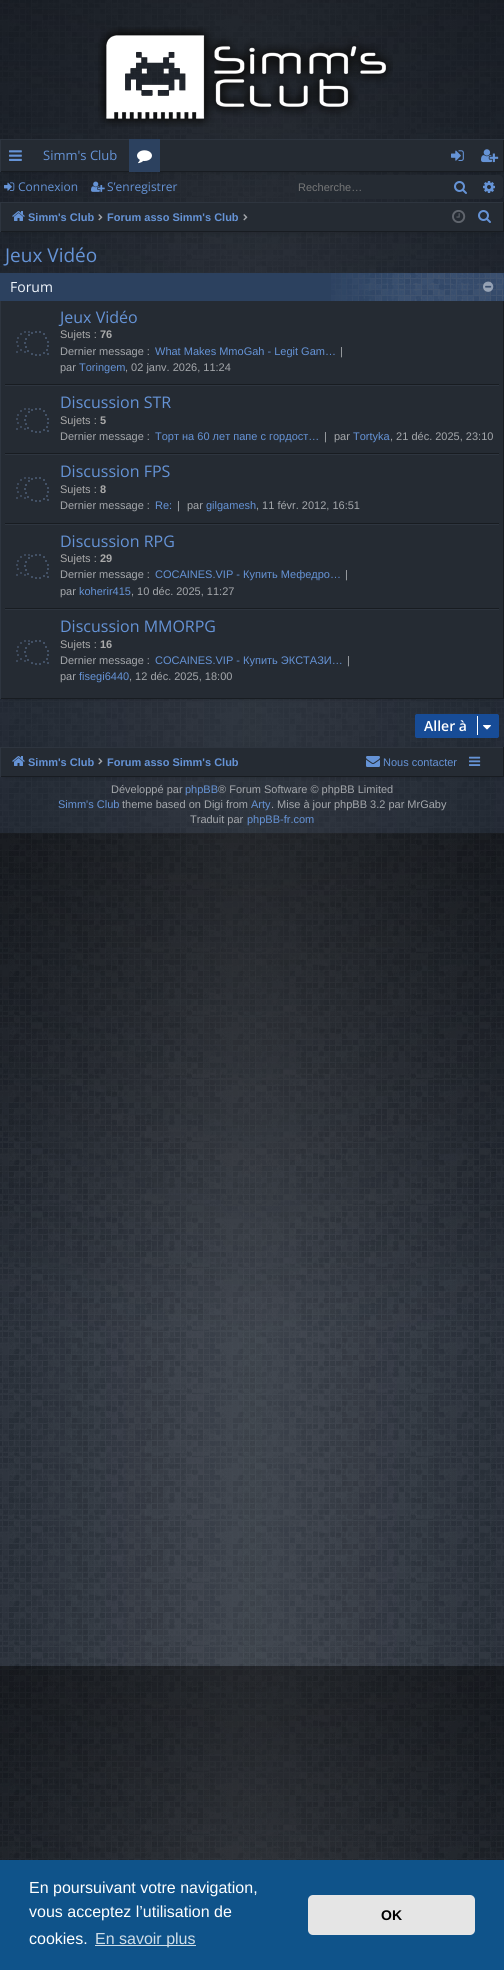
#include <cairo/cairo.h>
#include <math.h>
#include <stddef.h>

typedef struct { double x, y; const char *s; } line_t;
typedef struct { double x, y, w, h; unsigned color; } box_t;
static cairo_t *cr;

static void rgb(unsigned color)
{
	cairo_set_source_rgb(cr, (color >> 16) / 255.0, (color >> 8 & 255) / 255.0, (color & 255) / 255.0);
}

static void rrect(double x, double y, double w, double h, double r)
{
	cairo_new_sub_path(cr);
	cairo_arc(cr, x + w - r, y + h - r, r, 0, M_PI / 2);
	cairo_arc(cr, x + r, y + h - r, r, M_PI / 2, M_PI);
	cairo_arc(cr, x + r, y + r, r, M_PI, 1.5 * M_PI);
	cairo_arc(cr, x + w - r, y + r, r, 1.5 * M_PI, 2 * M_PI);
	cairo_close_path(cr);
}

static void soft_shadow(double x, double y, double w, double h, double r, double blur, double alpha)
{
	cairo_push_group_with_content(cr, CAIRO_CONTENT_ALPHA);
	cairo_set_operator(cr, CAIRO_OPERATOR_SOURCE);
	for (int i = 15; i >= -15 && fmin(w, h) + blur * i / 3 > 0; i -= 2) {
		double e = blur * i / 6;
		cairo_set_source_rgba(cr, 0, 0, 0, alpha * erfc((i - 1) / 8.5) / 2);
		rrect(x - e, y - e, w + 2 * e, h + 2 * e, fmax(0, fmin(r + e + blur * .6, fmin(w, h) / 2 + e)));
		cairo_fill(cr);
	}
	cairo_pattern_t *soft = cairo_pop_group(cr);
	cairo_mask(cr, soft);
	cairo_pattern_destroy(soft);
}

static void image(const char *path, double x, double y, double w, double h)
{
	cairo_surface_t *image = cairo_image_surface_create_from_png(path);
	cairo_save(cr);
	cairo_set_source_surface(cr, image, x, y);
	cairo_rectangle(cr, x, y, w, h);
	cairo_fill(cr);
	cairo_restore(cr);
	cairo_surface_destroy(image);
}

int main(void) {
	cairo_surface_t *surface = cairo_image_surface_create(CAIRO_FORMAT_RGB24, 504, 1970);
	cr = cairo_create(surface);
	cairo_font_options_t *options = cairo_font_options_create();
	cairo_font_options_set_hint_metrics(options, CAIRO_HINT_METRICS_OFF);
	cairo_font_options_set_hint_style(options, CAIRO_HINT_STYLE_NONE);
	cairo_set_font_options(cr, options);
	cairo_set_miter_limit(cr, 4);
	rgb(0x1c232e);
	cairo_paint(cr);
	image("img/1.png", 0, 833, 504, 1027);
	image("img/2.png", 0, 0, 504, 1860);
	image("img/3.png", 98, 27, 295, 100);
	rgb(0x000000);
	soft_shadow(5, 149, 494, 23, 0, 2.5, 0.2);
	rgb(0x252b33);
	cairo_rectangle(cr, 1, 140, 502, 31);
	cairo_fill(cr);
	cairo_save(cr);
	cairo_rectangle(cr, 0, 139, 504, 33);
	cairo_clip(cr);
	rgb(0x181c21);
	cairo_set_fill_rule(cr, CAIRO_FILL_RULE_EVEN_ODD);
	cairo_new_path(cr);
	cairo_move_to(cr, -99, 40);
	cairo_line_to(cr, 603, 40);
	cairo_line_to(cr, 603, 271);
	cairo_line_to(cr, -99, 271);
	cairo_close_path(cr);
	cairo_move_to(cr, -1, 138);
	cairo_line_to(cr, 503, 138);
	cairo_line_to(cr, 503, 171);
	cairo_line_to(cr, -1, 171);
	cairo_close_path(cr);
	cairo_fill(cr);
	rgb(0x2e353f);
	cairo_new_path(cr);
	cairo_move_to(cr, -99, 40);
	cairo_line_to(cr, 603, 40);
	cairo_line_to(cr, 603, 271);
	cairo_line_to(cr, -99, 271);
	cairo_close_path(cr);
	cairo_move_to(cr, 1, 140);
	cairo_line_to(cr, 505, 140);
	cairo_line_to(cr, 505, 173);
	cairo_line_to(cr, 1, 173);
	cairo_close_path(cr);
	cairo_fill(cr);
	cairo_restore(cr);
	image("img/4.png", 9, 150, 13, 11);
	rgb(0x2c415f);
	cairo_rectangle(cr, 129, 139, 31, 33);
	cairo_fill(cr);
	image("img/5.png", 137, 150, 15, 14);
	image("img/6.png", 451, 150, 13, 11);
	image("img/7.png", 481, 149, 18, 14);
	image("img/8.png", 4, 182, 11, 9);
	image("img/9.png", 91, 181, 14, 11);
	rgb(0x252b33);
	cairo_rectangle(cr, 296, 175, 149, 24);
	cairo_fill(cr);
	cairo_rectangle(cr, 445, 175, 30, 24);
	cairo_fill(cr);
	image("img/10.png", 454, 181, 13, 13);
	cairo_new_path(cr);
	cairo_move_to(cr, 475, 175);
	cairo_line_to(cr, 499, 175);
	cairo_curve_to(cr, 501, 175, 503, 177, 503, 179);
	cairo_line_to(cr, 503, 195);
	cairo_curve_to(cr, 503, 197, 501, 199, 499, 199);
	cairo_line_to(cr, 475, 199);
	cairo_close_path(cr);
	cairo_fill(cr);
	image("img/11.png", 483, 181, 12, 12);
	rgb(0x000000);
	soft_shadow(5, 212, 494, 20, 0, 2.5, 0.2);
	{
		static const box_t items[] = {
			{1, 203, 502, 28, 0x252b33},
			{0, 202, 504, 1, 0x2e353f},
			{503, 202, 1, 30, 0x181c21},
			{0, 231, 504, 1, 0x181c21},
			{0, 202, 1, 30, 0x2e353f},
		};
		for (size_t i = 0; i < sizeof items / sizeof *items; i++) {
			rgb(items[i].color);
			cairo_rectangle(cr, items[i].x, items[i].y, items[i].w, items[i].h);
			cairo_fill(cr);
		}
	}
	image("img/12.png", 12, 211, 13, 10);
	image("img/13.png", 98, 214, 5, 7);
	image("img/13.png", 243, 214, 5, 7);
	image("img/14.png", 452, 210, 14, 13);
	image("img/10.png", 478, 210, 13, 13);
	rgb(0x000000);
	soft_shadow(5, 283, 494, 416, 0, 2.5, 0.2);
	{
		static const box_t items[] = {
			{1, 301, 502, 397, 0x252b33},
			{503, 301, 1, 398, 0x181c21},
			{0, 698, 504, 1, 0x181c21},
			{0, 301, 1, 398, 0x2e353f},
			{0, 273, 504, 28, 0x2c415f},
		};
		for (size_t i = 0; i < sizeof items / sizeof *items; i++) {
			rgb(items[i].color);
			cairo_rectangle(cr, items[i].x, items[i].y, items[i].w, items[i].h);
			cairo_fill(cr);
		}
	}
	image("img/15.png", 331, 273, 173, 28);
	image("img/16.png", 483, 281, 11, 11);
	rgb(0x181c21);
	cairo_rectangle(cr, 5, 384, 494, 1);
	cairo_fill(cr);
	image("img/17.png", 16, 331, 33, 25);
	rgb(0x2e353f);
	cairo_rectangle(cr, 5, 385, 494, 1);
	cairo_fill(cr);
	rgb(0x181c21);
	cairo_rectangle(cr, 5, 453, 494, 1);
	cairo_fill(cr);
	image("img/17.png", 16, 408, 33, 25);
	rgb(0x2e353f);
	cairo_rectangle(cr, 5, 454, 494, 1);
	cairo_fill(cr);
	rgb(0x181c21);
	cairo_rectangle(cr, 5, 523, 494, 1);
	cairo_fill(cr);
	image("img/17.png", 16, 477, 33, 25);
	rgb(0x2e353f);
	cairo_rectangle(cr, 5, 524, 494, 1);
	cairo_fill(cr);
	rgb(0x181c21);
	cairo_rectangle(cr, 5, 608, 494, 1);
	cairo_fill(cr);
	image("img/17.png", 16, 554, 33, 25);
	rgb(0x2e353f);
	cairo_rectangle(cr, 5, 609, 494, 1);
	cairo_fill(cr);
	image("img/17.png", 16, 640, 33, 25);
	rgb(0x174c97);
	rrect(415.5, 714.5, 83, 23, 1.5);
	cairo_fill_preserve(cr);
	cairo_set_line_width(cr, 1);
	cairo_stroke(cr);
	rgb(0xffffff);
	cairo_rectangle(cr, 477, 716, 1, 19);
	cairo_fill(cr);
	image("img/18.png", 483, 725, 8, 5);
	rgb(0x000000);
	soft_shadow(5, 757, 494, 20, 0, 2.5, 0.2);
	{
		static const box_t items[] = {
			{1, 748, 502, 28, 0x252b33},
			{0, 747, 504, 1, 0x2e353f},
			{503, 747, 1, 30, 0x181c21},
			{0, 776, 504, 1, 0x181c21},
			{0, 747, 1, 30, 0x2e353f},
		};
		for (size_t i = 0; i < sizeof items / sizeof *items; i++) {
			rgb(items[i].color);
			cairo_rectangle(cr, items[i].x, items[i].y, items[i].w, items[i].h);
			cairo_fill(cr);
		}
	}
	image("img/12.png", 12, 756, 13, 10);
	image("img/13.png", 98, 758, 5, 7);
	image("img/19.png", 366, 756, 14, 11);
	image("img/20.png", 469, 756, 12, 10);
	rgb(0x0f538a);
	cairo_rectangle(cr, 0, 1860, 504, 110);
	cairo_fill(cr);
	rgb(0xcfdde8);
	cairo_rectangle(cr, 95, 1945, 101, 1);
	cairo_fill(cr);
	rgb(0xe5e5e5);
	rrect(308, 1895, 167, 40, 5);
	cairo_fill(cr);
	cairo_select_font_face(cr, "Open Sans", CAIRO_FONT_SLANT_NORMAL, CAIRO_FONT_WEIGHT_NORMAL);
	cairo_set_font_size(cr, 13);
	rgb(0x6593d6);
	cairo_move_to(cr, 43, 160);
	cairo_show_text(cr, "Simm's Club");
	cairo_set_font_size(cr, 12);
	cairo_move_to(cr, 18, 191);
	cairo_show_text(cr, "Connexion");
	cairo_move_to(cr, 107, 191);
	cairo_show_text(cr, "S’enregistrer");
	cairo_select_font_face(cr, "Liberation Sans", CAIRO_FONT_SLANT_NORMAL, CAIRO_FONT_WEIGHT_NORMAL);
	cairo_set_font_size(cr, 11);
	rgb(0x757677);
	cairo_move_to(cr, 298, 191);
	cairo_show_text(cr, "Recherche…");
	cairo_select_font_face(cr, "Liberation Sans", CAIRO_FONT_SLANT_NORMAL, CAIRO_FONT_WEIGHT_BOLD);
	rgb(0x6593d6);
	cairo_move_to(cr, 28, 221);
	cairo_show_text(cr, "Simm's Club");
	cairo_move_to(cr, 107, 221);
	cairo_show_text(cr, "Forum asso Simm's Club");
	cairo_select_font_face(cr, "Open Sans", CAIRO_FONT_SLANT_NORMAL, CAIRO_FONT_WEIGHT_NORMAL);
	cairo_set_font_size(cr, 19);
	cairo_move_to(cr, 5, 262);
	cairo_show_text(cr, "Jeux Vidéo");
	cairo_set_font_size(cr, 14);
	rgb(0xf1f6fc);
	cairo_move_to(cr, 10, 292);
	cairo_show_text(cr, "Forum");
	cairo_set_font_size(cr, 16);
	rgb(0x6593d6);
	cairo_move_to(cr, 60, 323);
	cairo_show_text(cr, "Jeux Vidéo");
	cairo_select_font_face(cr, "Liberation Sans", CAIRO_FONT_SLANT_NORMAL, CAIRO_FONT_WEIGHT_NORMAL);
	cairo_set_font_size(cr, 11);
	rgb(0xaaaaaa);
	cairo_move_to(cr, 60, 338);
	cairo_show_text(cr, "Sujets :");
	cairo_select_font_face(cr, "Liberation Sans", CAIRO_FONT_SLANT_NORMAL, CAIRO_FONT_WEIGHT_BOLD);
	cairo_move_to(cr, 100, 338);
	cairo_show_text(cr, "76");
	cairo_select_font_face(cr, "Liberation Sans", CAIRO_FONT_SLANT_NORMAL, CAIRO_FONT_WEIGHT_NORMAL);
	rgb(0xa4a7ab);
	cairo_move_to(cr, 60, 355);
	cairo_show_text(cr, "Dernier message :");
	rgb(0x6593d6);
	cairo_move_to(cr, 155, 355);
	cairo_show_text(cr, "What Makes MmoGah - Legit Gam…");
	rgb(0xa4a7ab);
	cairo_move_to(cr, 340, 355);
	cairo_show_text(cr, "|");
	cairo_move_to(cr, 60, 371);
	cairo_show_text(cr, "par");
	rgb(0x6593d6);
	cairo_move_to(cr, 79, 371);
	cairo_show_text(cr, "Toringem");
	rgb(0xa4a7ab);
	cairo_move_to(cr, 125, 371);
	cairo_show_text(cr, ", 02 janv. 2026, 11:24");
	cairo_select_font_face(cr, "Open Sans", CAIRO_FONT_SLANT_NORMAL, CAIRO_FONT_WEIGHT_NORMAL);
	cairo_set_font_size(cr, 16);
	rgb(0x6593d6);
	cairo_move_to(cr, 60, 408);
	cairo_show_text(cr, "Discussion STR");
	cairo_select_font_face(cr, "Liberation Sans", CAIRO_FONT_SLANT_NORMAL, CAIRO_FONT_WEIGHT_NORMAL);
	cairo_set_font_size(cr, 11);
	rgb(0xaaaaaa);
	cairo_move_to(cr, 60, 424);
	cairo_show_text(cr, "Sujets :");
	cairo_select_font_face(cr, "Liberation Sans", CAIRO_FONT_SLANT_NORMAL, CAIRO_FONT_WEIGHT_BOLD);
	cairo_move_to(cr, 100, 424);
	cairo_show_text(cr, "5");
	cairo_select_font_face(cr, "Liberation Sans", CAIRO_FONT_SLANT_NORMAL, CAIRO_FONT_WEIGHT_NORMAL);
	rgb(0xa4a7ab);
	cairo_move_to(cr, 60, 440);
	cairo_show_text(cr, "Dernier message :");
	rgb(0x6593d6);
	cairo_move_to(cr, 155, 440);
	cairo_show_text(cr, "Торт на 60 лет папе с гордост…");
	rgb(0xa4a7ab);
	cairo_move_to(cr, 324, 440);
	cairo_show_text(cr, "|");
	cairo_move_to(cr, 334, 440);
	cairo_show_text(cr, "par");
	rgb(0x6593d6);
	cairo_move_to(cr, 353, 440);
	cairo_show_text(cr, "Tortyka");
	rgb(0xa4a7ab);
	cairo_move_to(cr, 390, 440);
	cairo_show_text(cr, ", 21 déc. 2025, 23:10");
	cairo_select_font_face(cr, "Open Sans", CAIRO_FONT_SLANT_NORMAL, CAIRO_FONT_WEIGHT_NORMAL);
	cairo_set_font_size(cr, 16);
	rgb(0x6593d6);
	cairo_move_to(cr, 60, 477);
	cairo_show_text(cr, "Discussion FPS");
	cairo_select_font_face(cr, "Liberation Sans", CAIRO_FONT_SLANT_NORMAL, CAIRO_FONT_WEIGHT_NORMAL);
	cairo_set_font_size(cr, 11);
	rgb(0xaaaaaa);
	cairo_move_to(cr, 60, 493);
	cairo_show_text(cr, "Sujets :");
	cairo_select_font_face(cr, "Liberation Sans", CAIRO_FONT_SLANT_NORMAL, CAIRO_FONT_WEIGHT_BOLD);
	cairo_move_to(cr, 100, 493);
	cairo_show_text(cr, "8");
	cairo_select_font_face(cr, "Liberation Sans", CAIRO_FONT_SLANT_NORMAL, CAIRO_FONT_WEIGHT_NORMAL);
	rgb(0xa4a7ab);
	cairo_move_to(cr, 60, 509);
	cairo_show_text(cr, "Dernier message :");
	rgb(0x6593d6);
	cairo_move_to(cr, 155, 509);
	cairo_show_text(cr, "Re:");
	rgb(0xa4a7ab);
	cairo_move_to(cr, 177, 509);
	cairo_show_text(cr, "|");
	cairo_move_to(cr, 187, 509);
	cairo_show_text(cr, "par");
	rgb(0x6593d6);
	cairo_move_to(cr, 206, 509);
	cairo_show_text(cr, "gilgamesh");
	rgb(0xa4a7ab);
	cairo_move_to(cr, 256, 509);
	cairo_show_text(cr, ", 11 févr. 2012, 16:51");
	cairo_select_font_face(cr, "Open Sans", CAIRO_FONT_SLANT_NORMAL, CAIRO_FONT_WEIGHT_NORMAL);
	cairo_set_font_size(cr, 16);
	rgb(0x6593d6);
	cairo_move_to(cr, 60, 547);
	cairo_show_text(cr, "Discussion RPG");
	cairo_select_font_face(cr, "Liberation Sans", CAIRO_FONT_SLANT_NORMAL, CAIRO_FONT_WEIGHT_NORMAL);
	cairo_set_font_size(cr, 11);
	rgb(0xaaaaaa);
	cairo_move_to(cr, 60, 562);
	cairo_show_text(cr, "Sujets :");
	cairo_select_font_face(cr, "Liberation Sans", CAIRO_FONT_SLANT_NORMAL, CAIRO_FONT_WEIGHT_BOLD);
	cairo_move_to(cr, 100, 562);
	cairo_show_text(cr, "29");
	cairo_select_font_face(cr, "Liberation Sans", CAIRO_FONT_SLANT_NORMAL, CAIRO_FONT_WEIGHT_NORMAL);
	rgb(0xa4a7ab);
	cairo_move_to(cr, 60, 578);
	cairo_show_text(cr, "Dernier message :");
	rgb(0x6593d6);
	cairo_move_to(cr, 155, 578);
	cairo_show_text(cr, "COCAINES.VIP - Купить Мефедро…");
	rgb(0xa4a7ab);
	cairo_move_to(cr, 345, 578);
	cairo_show_text(cr, "|");
	cairo_move_to(cr, 60, 595);
	cairo_show_text(cr, "par");
	rgb(0x6593d6);
	cairo_move_to(cr, 79, 595);
	cairo_show_text(cr, "koherir415");
	rgb(0xa4a7ab);
	cairo_move_to(cr, 131, 595);
	cairo_show_text(cr, ", 10 déc. 2025, 11:27");
	cairo_select_font_face(cr, "Open Sans", CAIRO_FONT_SLANT_NORMAL, CAIRO_FONT_WEIGHT_NORMAL);
	cairo_set_font_size(cr, 16);
	rgb(0x6593d6);
	cairo_move_to(cr, 60, 632);
	cairo_show_text(cr, "Discussion MMORPG");
	cairo_select_font_face(cr, "Liberation Sans", CAIRO_FONT_SLANT_NORMAL, CAIRO_FONT_WEIGHT_NORMAL);
	cairo_set_font_size(cr, 11);
	rgb(0xaaaaaa);
	cairo_move_to(cr, 60, 648);
	cairo_show_text(cr, "Sujets :");
	cairo_select_font_face(cr, "Liberation Sans", CAIRO_FONT_SLANT_NORMAL, CAIRO_FONT_WEIGHT_BOLD);
	cairo_move_to(cr, 100, 648);
	cairo_show_text(cr, "16");
	cairo_select_font_face(cr, "Liberation Sans", CAIRO_FONT_SLANT_NORMAL, CAIRO_FONT_WEIGHT_NORMAL);
	rgb(0xa4a7ab);
	cairo_move_to(cr, 60, 664);
	cairo_show_text(cr, "Dernier message :");
	rgb(0x6593d6);
	cairo_move_to(cr, 155, 664);
	cairo_show_text(cr, "COCAINES.VIP - Купить ЭКСТАЗИ…");
	rgb(0xa4a7ab);
	cairo_move_to(cr, 347, 664);
	cairo_show_text(cr, "|");
	cairo_move_to(cr, 60, 680);
	cairo_show_text(cr, "par");
	rgb(0x6593d6);
	cairo_move_to(cr, 79, 680);
	cairo_show_text(cr, "fisegi6440");
	rgb(0xa4a7ab);
	cairo_move_to(cr, 129, 680);
	cairo_show_text(cr, ", 12 déc. 2025, 18:00");
	cairo_select_font_face(cr, "Open Sans SemiBold", CAIRO_FONT_SLANT_NORMAL, CAIRO_FONT_WEIGHT_NORMAL);
	cairo_set_font_size(cr, 14);
	rgb(0xffffff);
	cairo_move_to(cr, 424, 731);
	cairo_show_text(cr, "Aller à");
	cairo_select_font_face(cr, "Liberation Sans", CAIRO_FONT_SLANT_NORMAL, CAIRO_FONT_WEIGHT_BOLD);
	cairo_set_font_size(cr, 11);
	rgb(0x6593d6);
	cairo_move_to(cr, 28, 766);
	cairo_show_text(cr, "Simm's Club");
	cairo_move_to(cr, 107, 766);
	cairo_show_text(cr, "Forum asso Simm's Club");
	cairo_select_font_face(cr, "Liberation Sans", CAIRO_FONT_SLANT_NORMAL, CAIRO_FONT_WEIGHT_NORMAL);
	cairo_move_to(cr, 383, 766);
	cairo_show_text(cr, "Nous contacter");
	rgb(0xa4a7ab);
	cairo_move_to(cr, 111, 793);
	cairo_show_text(cr, "Développé par");
	rgb(0x6593d6);
	cairo_move_to(cr, 185, 793);
	cairo_show_text(cr, "phpBB");
	rgb(0xa4a7ab);
	cairo_move_to(cr, 218, 793);
	cairo_show_text(cr, "® Forum Software © phpBB Limited");
	rgb(0x6593d6);
	cairo_move_to(cr, 58, 808);
	cairo_show_text(cr, "Simm's Club");
	rgb(0xa4a7ab);
	cairo_move_to(cr, 122, 808);
	cairo_show_text(cr, "theme based on Digi from");
	rgb(0x6593d6);
	cairo_move_to(cr, 251, 808);
	cairo_show_text(cr, "Arty");
	rgb(0xa4a7ab);
	cairo_move_to(cr, 271, 808);
	cairo_show_text(cr, ". Mise à jour phpBB 3.2 par MrGaby");
	cairo_move_to(cr, 190, 823);
	cairo_show_text(cr, "Traduit par");
	rgb(0x6593d6);
	cairo_move_to(cr, 247, 823);
	cairo_show_text(cr, "phpBB-fr.com");
	cairo_set_font_size(cr, 16);
	rgb(0xffffff);
	{
		static const line_t items[] = {
			{29, 1893, "En poursuivant votre navigation,"},
			{29, 1917, "vous acceptez l’utilisation de"},
			{29, 1944, "cookies."},
		};
		for (size_t i = 0; i < sizeof items / sizeof *items; i++) {
			cairo_move_to(cr, items[i].x, items[i].y);
			cairo_show_text(cr, items[i].s);
		}
	}
	rgb(0xcfdde8);
	cairo_move_to(cr, 95, 1944);
	cairo_show_text(cr, "En savoir plus");
	cairo_select_font_face(cr, "Liberation Sans", CAIRO_FONT_SLANT_NORMAL, CAIRO_FONT_WEIGHT_BOLD);
	cairo_set_font_size(cr, 14);
	rgb(0x000000);
	cairo_move_to(cr, 381, 1920);
	cairo_show_text(cr, "OK");
	cairo_surface_write_to_png(surface, "page.png");
	cairo_font_options_destroy(options);
	cairo_destroy(cr);
	cairo_surface_destroy(surface);
	return 0;
}
